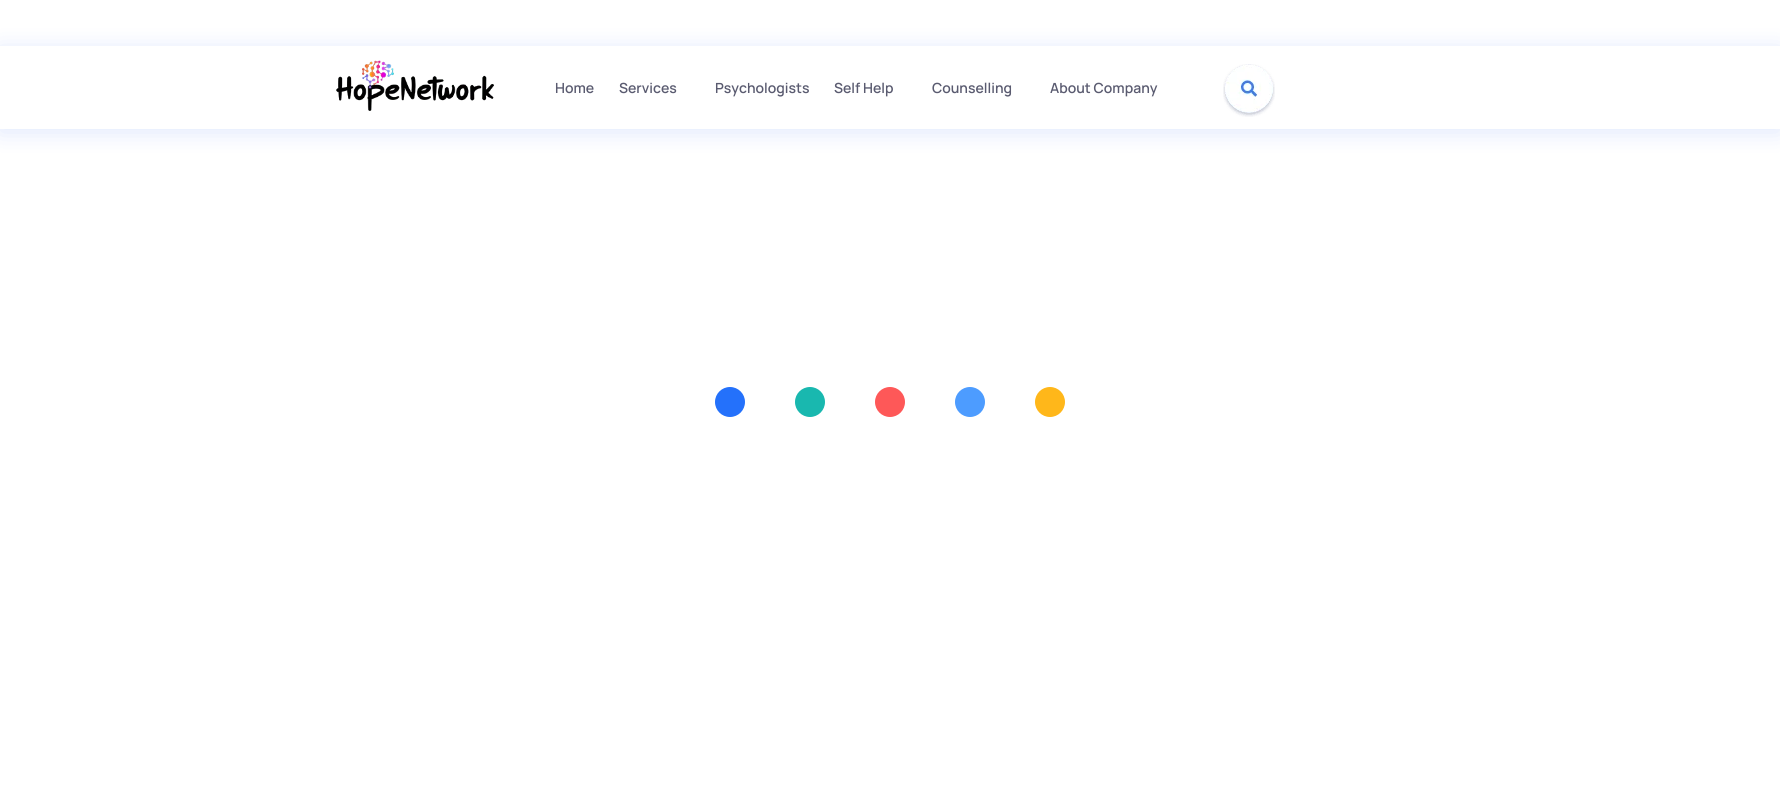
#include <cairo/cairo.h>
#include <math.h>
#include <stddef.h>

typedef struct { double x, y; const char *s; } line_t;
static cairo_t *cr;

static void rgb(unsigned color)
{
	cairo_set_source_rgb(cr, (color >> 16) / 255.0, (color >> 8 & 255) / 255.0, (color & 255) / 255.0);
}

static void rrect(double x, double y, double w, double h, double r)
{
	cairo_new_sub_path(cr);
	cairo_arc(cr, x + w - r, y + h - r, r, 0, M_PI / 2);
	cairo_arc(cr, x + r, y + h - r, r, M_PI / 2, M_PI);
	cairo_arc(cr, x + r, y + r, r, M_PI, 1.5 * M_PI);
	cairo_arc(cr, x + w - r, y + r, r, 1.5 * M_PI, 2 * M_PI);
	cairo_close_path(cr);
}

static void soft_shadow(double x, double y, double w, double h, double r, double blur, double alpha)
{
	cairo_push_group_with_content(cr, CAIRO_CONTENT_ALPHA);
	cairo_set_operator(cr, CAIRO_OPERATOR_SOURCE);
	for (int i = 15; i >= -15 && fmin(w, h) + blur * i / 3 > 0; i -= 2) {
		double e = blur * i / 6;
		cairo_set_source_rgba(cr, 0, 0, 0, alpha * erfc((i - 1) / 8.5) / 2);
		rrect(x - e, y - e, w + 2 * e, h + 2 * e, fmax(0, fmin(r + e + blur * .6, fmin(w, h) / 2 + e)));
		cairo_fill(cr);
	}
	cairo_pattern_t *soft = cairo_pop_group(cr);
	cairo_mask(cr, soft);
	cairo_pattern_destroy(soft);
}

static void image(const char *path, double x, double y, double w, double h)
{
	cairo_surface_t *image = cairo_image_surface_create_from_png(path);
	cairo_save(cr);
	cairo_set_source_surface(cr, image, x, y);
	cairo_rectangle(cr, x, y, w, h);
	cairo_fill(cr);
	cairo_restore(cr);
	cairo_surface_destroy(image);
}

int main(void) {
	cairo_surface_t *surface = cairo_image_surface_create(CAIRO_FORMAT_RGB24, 1780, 804);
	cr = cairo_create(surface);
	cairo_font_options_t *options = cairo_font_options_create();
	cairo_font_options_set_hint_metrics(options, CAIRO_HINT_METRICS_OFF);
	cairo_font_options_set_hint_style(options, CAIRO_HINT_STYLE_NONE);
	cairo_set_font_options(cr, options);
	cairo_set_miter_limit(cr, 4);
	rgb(0xffffff);
	cairo_paint(cr);
	image("img/1.png", 1313, 17, 11, 11);
	image("img/4.png", 0, 129, 1780, 221);
	cairo_save(cr);
	cairo_set_fill_rule(cr, CAIRO_FILL_RULE_EVEN_ODD);
	cairo_new_path(cr);
	cairo_move_to(cr, 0, 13);
	cairo_line_to(cr, 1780, 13);
	cairo_line_to(cr, 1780, 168);
	cairo_line_to(cr, 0, 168);
	cairo_close_path(cr);
	cairo_move_to(cr, 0, 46);
	cairo_line_to(cr, 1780, 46);
	cairo_line_to(cr, 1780, 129);
	cairo_line_to(cr, 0, 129);
	cairo_close_path(cr);
	cairo_clip(cr);
	rgb(0x0047f0);
	soft_shadow(0, 49, 1780, 83, 0, 11.5, 0.13);
	cairo_restore(cr);
	image("img/2.png", 336, 60, 158, 51);
	image("img/3.png", 1223, 64, 52, 53);
	rgb(0x2471fb);
	cairo_arc(cr, 730, 402, 15, 0, 2 * M_PI);
	cairo_fill(cr);
	rgb(0x19b8af);
	cairo_arc(cr, 810, 402, 15, 0, 2 * M_PI);
	cairo_fill(cr);
	rgb(0xfe5858);
	cairo_arc(cr, 890, 402, 15, 0, 2 * M_PI);
	cairo_fill(cr);
	rgb(0x4d9cff);
	cairo_arc(cr, 970, 402, 15, 0, 2 * M_PI);
	cairo_fill(cr);
	rgb(0xffb71a);
	cairo_arc(cr, 1050, 402, 15, 0, 2 * M_PI);
	cairo_fill(cr);
	image("img/5.png", 1723, 749, 16, 10);
	cairo_select_font_face(cr, "Manrope SemiBold", CAIRO_FONT_SLANT_NORMAL, CAIRO_FONT_WEIGHT_NORMAL);
	cairo_set_font_size(cr, 14);
	rgb(0x5a5b70);
	{
		static const line_t items[] = {
			{555, 93, "Home"},
			{619, 93, "Services"},
			{715, 93, "Psychologists"},
			{834, 93, "Self Help"},
			{932, 93, "Counselling"},
			{1050, 93, "About Company"},
		};
		for (size_t i = 0; i < sizeof items / sizeof *items; i++) {
			cairo_move_to(cr, items[i].x, items[i].y);
			cairo_show_text(cr, items[i].s);
		}
	}
	cairo_surface_write_to_png(surface, "page.png");
	cairo_font_options_destroy(options);
	cairo_destroy(cr);
	cairo_surface_destroy(surface);
	return 0;
}
